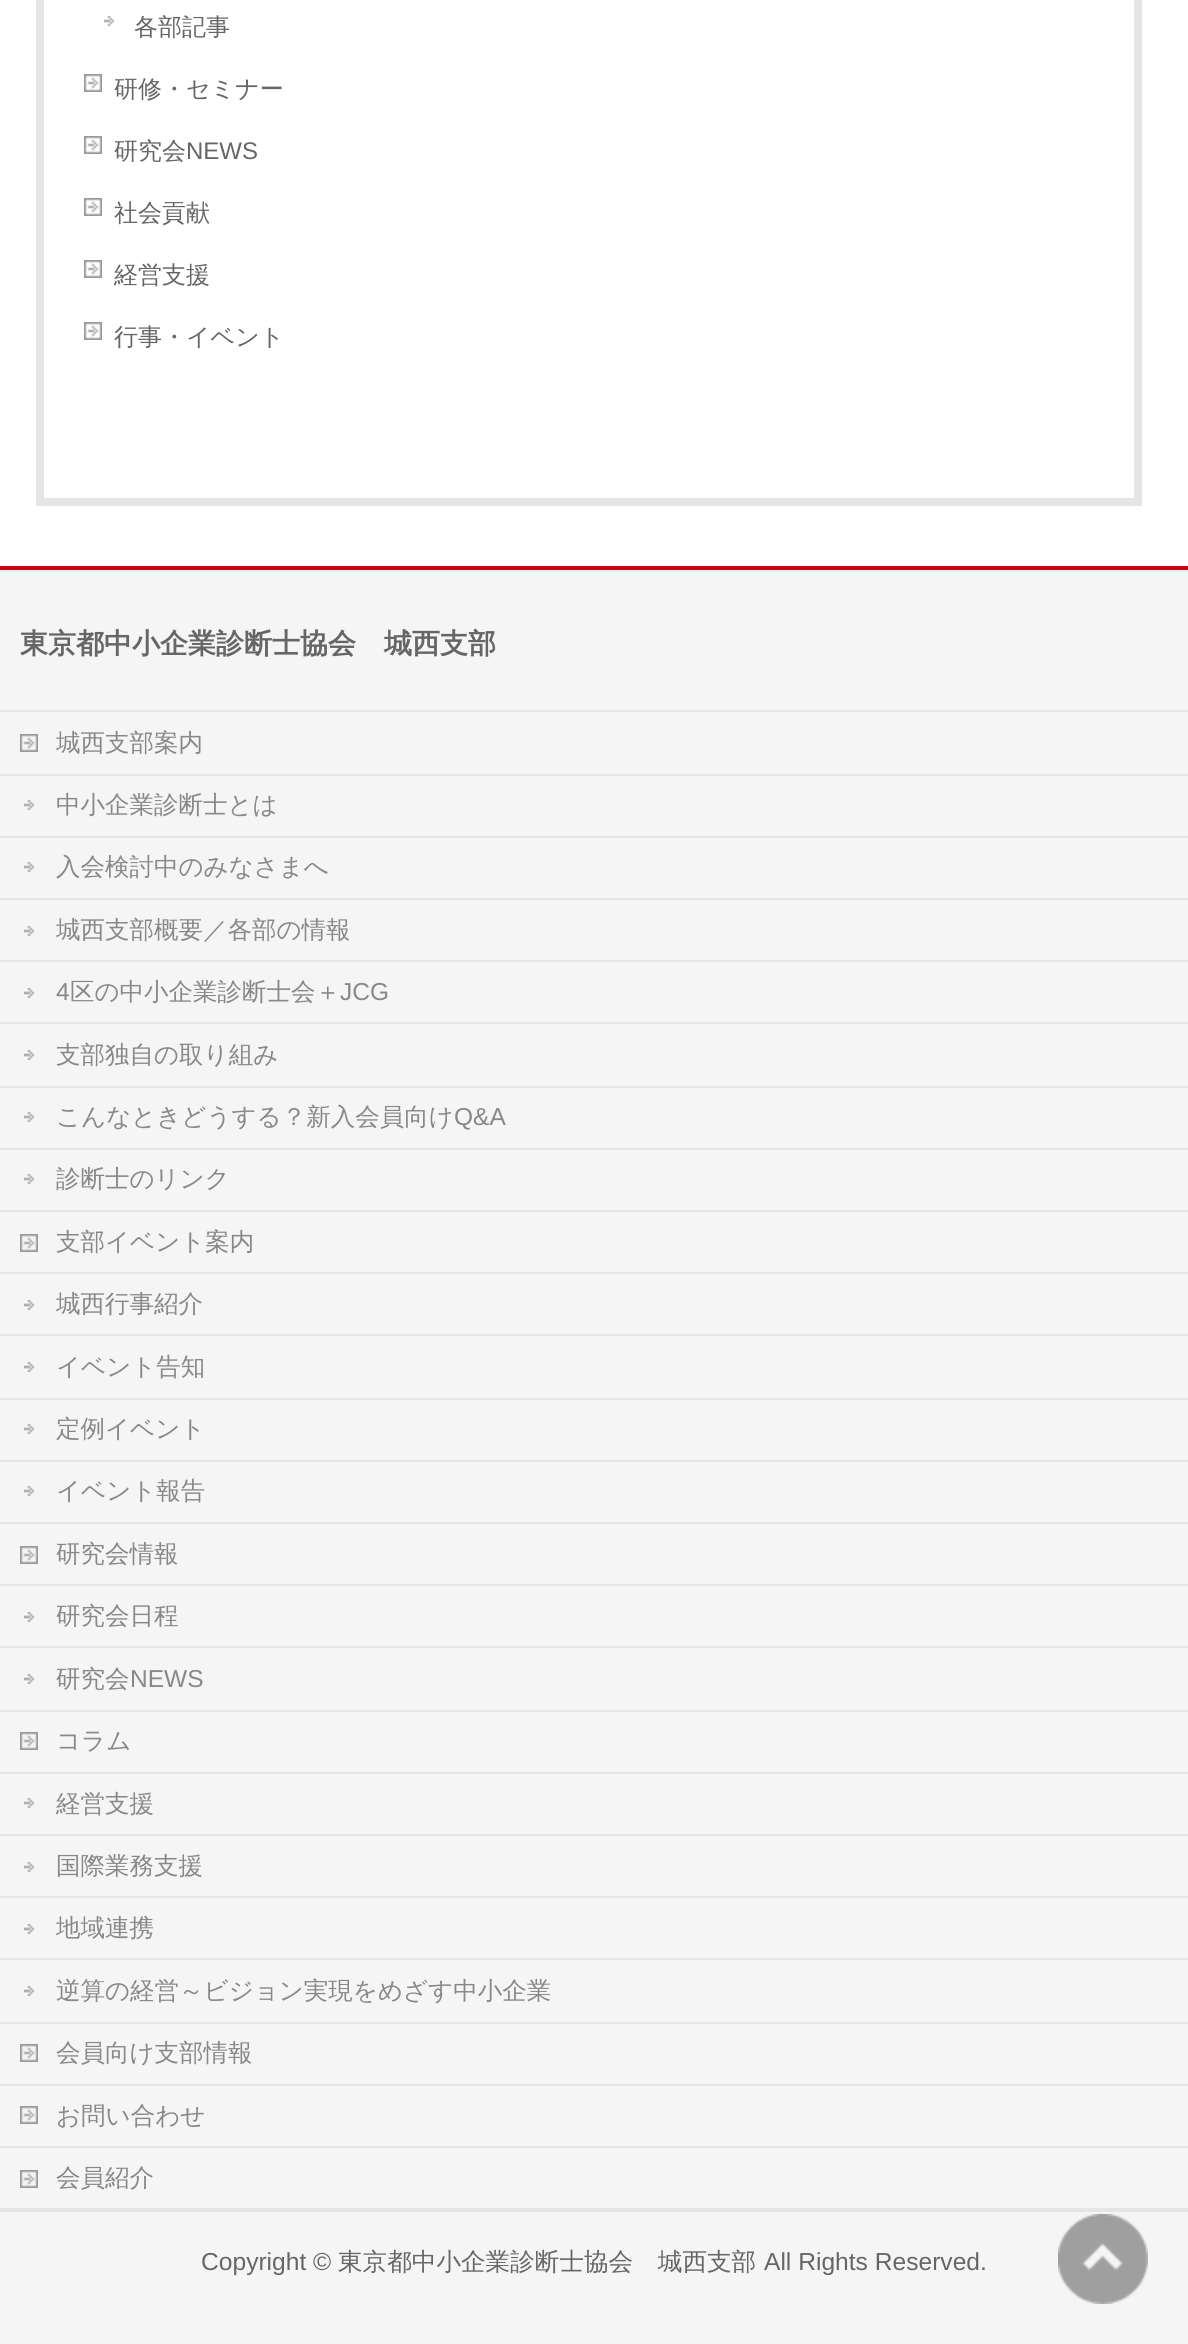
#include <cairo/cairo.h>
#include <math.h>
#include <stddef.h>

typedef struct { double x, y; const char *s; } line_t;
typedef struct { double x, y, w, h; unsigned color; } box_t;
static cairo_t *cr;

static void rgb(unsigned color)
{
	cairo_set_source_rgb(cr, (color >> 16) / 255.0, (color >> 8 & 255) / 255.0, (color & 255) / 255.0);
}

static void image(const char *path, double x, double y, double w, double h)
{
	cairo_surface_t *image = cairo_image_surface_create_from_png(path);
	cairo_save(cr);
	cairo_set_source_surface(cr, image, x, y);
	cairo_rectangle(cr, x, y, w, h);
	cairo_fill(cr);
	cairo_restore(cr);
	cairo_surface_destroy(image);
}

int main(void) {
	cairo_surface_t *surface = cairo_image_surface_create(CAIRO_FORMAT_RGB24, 1188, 2344);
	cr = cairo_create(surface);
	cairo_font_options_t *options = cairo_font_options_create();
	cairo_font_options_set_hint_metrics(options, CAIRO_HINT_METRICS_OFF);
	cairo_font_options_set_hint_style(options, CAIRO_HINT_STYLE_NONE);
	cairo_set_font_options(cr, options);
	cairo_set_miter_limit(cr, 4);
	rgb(0xffffff);
	cairo_paint(cr);
	cairo_rectangle(cr, 40, -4, 1098, 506);
	rgb(0xe5e5e5);
	cairo_set_line_width(cr, 8);
	cairo_stroke(cr);
	image("img/1.png", 104, 16, 10, 10);
	image("img/2.png", 84, 74, 18, 18);
	image("img/2.png", 84, 136, 18, 18);
	image("img/2.png", 84, 198, 18, 18);
	image("img/2.png", 84, 260, 18, 18);
	image("img/2.png", 84, 322, 18, 18);
	{
		static const box_t items[] = {
			{0, 566, 1188, 4, 0xcc0014},
			{0, 570, 1188, 2, 0xe9e9e9},
			{0, 572, 1188, 1636, 0xf5f5f5},
			{0, 710, 1188, 2, 0xe5e5e5},
		};
		for (size_t i = 0; i < sizeof items / sizeof *items; i++) {
			rgb(items[i].color);
			cairo_rectangle(cr, items[i].x, items[i].y, items[i].w, items[i].h);
			cairo_fill(cr);
		}
	}
	image("img/3.png", 20, 734, 18, 18);
	cairo_rectangle(cr, 0, 774, 1188, 2);
	cairo_fill(cr);
	image("img/4.png", 24, 800, 10, 10);
	cairo_rectangle(cr, 0, 836, 1188, 2);
	cairo_fill(cr);
	image("img/4.png", 24, 862, 10, 10);
	cairo_rectangle(cr, 0, 898, 1188, 2);
	cairo_fill(cr);
	image("img/4.png", 24, 926, 10, 10);
	cairo_rectangle(cr, 0, 960, 1188, 2);
	cairo_fill(cr);
	image("img/4.png", 24, 988, 10, 10);
	cairo_rectangle(cr, 0, 1022, 1188, 2);
	cairo_fill(cr);
	image("img/4.png", 24, 1050, 10, 10);
	cairo_rectangle(cr, 0, 1086, 1188, 2);
	cairo_fill(cr);
	image("img/4.png", 24, 1112, 10, 10);
	cairo_rectangle(cr, 0, 1148, 1188, 2);
	cairo_fill(cr);
	image("img/4.png", 24, 1174, 10, 10);
	cairo_rectangle(cr, 0, 1210, 1188, 2);
	cairo_fill(cr);
	image("img/3.png", 20, 1234, 18, 18);
	cairo_rectangle(cr, 0, 1272, 1188, 2);
	cairo_fill(cr);
	image("img/4.png", 24, 1300, 10, 10);
	cairo_rectangle(cr, 0, 1334, 1188, 2);
	cairo_fill(cr);
	image("img/4.png", 24, 1362, 10, 10);
	cairo_rectangle(cr, 0, 1398, 1188, 2);
	cairo_fill(cr);
	image("img/4.png", 24, 1424, 10, 10);
	cairo_rectangle(cr, 0, 1460, 1188, 2);
	cairo_fill(cr);
	image("img/4.png", 24, 1486, 10, 10);
	cairo_rectangle(cr, 0, 1522, 1188, 2);
	cairo_fill(cr);
	image("img/3.png", 20, 1546, 18, 18);
	cairo_rectangle(cr, 0, 1584, 1188, 2);
	cairo_fill(cr);
	image("img/4.png", 24, 1612, 10, 10);
	cairo_rectangle(cr, 0, 1646, 1188, 2);
	cairo_fill(cr);
	image("img/4.png", 24, 1674, 10, 10);
	cairo_rectangle(cr, 0, 1710, 1188, 2);
	cairo_fill(cr);
	image("img/3.png", 20, 1732, 18, 18);
	cairo_rectangle(cr, 0, 1772, 1188, 2);
	cairo_fill(cr);
	image("img/4.png", 24, 1798, 10, 10);
	cairo_rectangle(cr, 0, 1834, 1188, 2);
	cairo_fill(cr);
	image("img/4.png", 24, 1862, 10, 10);
	cairo_rectangle(cr, 0, 1896, 1188, 2);
	cairo_fill(cr);
	image("img/4.png", 24, 1924, 10, 10);
	cairo_rectangle(cr, 0, 1958, 1188, 2);
	cairo_fill(cr);
	image("img/4.png", 24, 1986, 10, 10);
	cairo_rectangle(cr, 0, 2022, 1188, 2);
	cairo_fill(cr);
	image("img/3.png", 20, 2044, 18, 18);
	cairo_rectangle(cr, 0, 2084, 1188, 2);
	cairo_fill(cr);
	image("img/3.png", 20, 2106, 18, 18);
	cairo_rectangle(cr, 0, 2146, 1188, 2);
	cairo_fill(cr);
	image("img/3.png", 20, 2170, 18, 18);
	rgb(0xf5f5f5);
	cairo_rectangle(cr, 0, 2212, 1188, 132);
	cairo_fill(cr);
	rgb(0xe5e5e5);
	cairo_rectangle(cr, 0, 2208, 1188, 4);
	cairo_fill(cr);
	image("img/5.png", 1058, 2214, 90, 90);
	cairo_select_font_face(cr, "WenQuanYi Zen Hei Medium", CAIRO_FONT_SLANT_NORMAL, CAIRO_FONT_WEIGHT_NORMAL);
	cairo_set_font_size(cr, 24);
	rgb(0x666666);
	{
		static const line_t items[] = {
			{134, 35, "各部記事"},
			{114, 97, "研修・セミナー"},
			{114, 159, "研究会"},
		};
		for (size_t i = 0; i < sizeof items / sizeof *items; i++) {
			cairo_move_to(cr, items[i].x, items[i].y);
			cairo_show_text(cr, items[i].s);
		}
	}
	cairo_select_font_face(cr, "Liberation Sans", CAIRO_FONT_SLANT_NORMAL, CAIRO_FONT_WEIGHT_NORMAL);
	cairo_move_to(cr, 186, 159);
	cairo_show_text(cr, "NEWS");
	cairo_select_font_face(cr, "WenQuanYi Zen Hei Medium", CAIRO_FONT_SLANT_NORMAL, CAIRO_FONT_WEIGHT_NORMAL);
	{
		static const line_t items[] = {
			{114, 221, "社会貢献"},
			{114, 283, "経営支援"},
			{114, 345, "行事・イベント"},
		};
		for (size_t i = 0; i < sizeof items / sizeof *items; i++) {
			cairo_move_to(cr, items[i].x, items[i].y);
			cairo_show_text(cr, items[i].s);
		}
	}
	cairo_select_font_face(cr, "WenQuanYi Zen Hei", CAIRO_FONT_SLANT_NORMAL, CAIRO_FONT_WEIGHT_BOLD);
	cairo_set_font_size(cr, 28);
	cairo_move_to(cr, 20, 653);
	cairo_show_text(cr, "東京都中小企業診断士協会　城西支部");
	cairo_select_font_face(cr, "WenQuanYi Zen Hei Medium", CAIRO_FONT_SLANT_NORMAL, CAIRO_FONT_WEIGHT_NORMAL);
	cairo_set_font_size(cr, 24.5);
	rgb(0x888888);
	{
		static const line_t items[] = {
			{56, 751, "城西支部案内"},
			{56, 813, "中小企業診断士とは"},
			{56, 875, "入会検討中のみなさまへ"},
			{56, 938, "城西支部概要／各部の情報"},
		};
		for (size_t i = 0; i < sizeof items / sizeof *items; i++) {
			cairo_move_to(cr, items[i].x, items[i].y);
			cairo_show_text(cr, items[i].s);
		}
	}
	cairo_select_font_face(cr, "Liberation Sans", CAIRO_FONT_SLANT_NORMAL, CAIRO_FONT_WEIGHT_NORMAL);
	cairo_move_to(cr, 56, 1000);
	cairo_show_text(cr, "4");
	cairo_select_font_face(cr, "WenQuanYi Zen Hei Medium", CAIRO_FONT_SLANT_NORMAL, CAIRO_FONT_WEIGHT_NORMAL);
	cairo_move_to(cr, 70, 1000);
	cairo_show_text(cr, "区の中小企業診断士会＋");
	cairo_select_font_face(cr, "Liberation Sans", CAIRO_FONT_SLANT_NORMAL, CAIRO_FONT_WEIGHT_NORMAL);
	cairo_move_to(cr, 340, 1000);
	cairo_show_text(cr, "JCG");
	cairo_select_font_face(cr, "WenQuanYi Zen Hei Medium", CAIRO_FONT_SLANT_NORMAL, CAIRO_FONT_WEIGHT_NORMAL);
	cairo_move_to(cr, 56, 1063);
	cairo_show_text(cr, "支部独自の取り組み");
	cairo_move_to(cr, 56, 1125);
	cairo_show_text(cr, "こんなときどうする？新入会員向け");
	cairo_select_font_face(cr, "Liberation Sans", CAIRO_FONT_SLANT_NORMAL, CAIRO_FONT_WEIGHT_NORMAL);
	cairo_move_to(cr, 454, 1125);
	cairo_show_text(cr, "Q&A");
	cairo_select_font_face(cr, "WenQuanYi Zen Hei Medium", CAIRO_FONT_SLANT_NORMAL, CAIRO_FONT_WEIGHT_NORMAL);
	{
		static const line_t items[] = {
			{56, 1187, "診断士のリンク"},
			{56, 1250, "支部イベント案内"},
			{56, 1312, "城西行事紹介"},
			{56, 1375, "イベント告知"},
			{56, 1437, "定例イベント"},
			{56, 1499, "イベント報告"},
			{56, 1562, "研究会情報"},
			{56, 1624, "研究会日程"},
			{56, 1687, "研究会"},
		};
		for (size_t i = 0; i < sizeof items / sizeof *items; i++) {
			cairo_move_to(cr, items[i].x, items[i].y);
			cairo_show_text(cr, items[i].s);
		}
	}
	cairo_select_font_face(cr, "Liberation Sans", CAIRO_FONT_SLANT_NORMAL, CAIRO_FONT_WEIGHT_NORMAL);
	cairo_move_to(cr, 130, 1687);
	cairo_show_text(cr, "NEWS");
	cairo_select_font_face(cr, "WenQuanYi Zen Hei Medium", CAIRO_FONT_SLANT_NORMAL, CAIRO_FONT_WEIGHT_NORMAL);
	{
		static const line_t items[] = {
			{56, 1749, "コラム"},
			{56, 1812, "経営支援"},
			{56, 1874, "国際業務支援"},
			{56, 1936, "地域連携"},
			{56, 1999, "逆算の経営～ビジョン実現をめざす中小企業"},
			{56, 2061, "会員向け支部情報"},
			{56, 2124, "お問い合わせ"},
			{56, 2186, "会員紹介"},
		};
		for (size_t i = 0; i < sizeof items / sizeof *items; i++) {
			cairo_move_to(cr, items[i].x, items[i].y);
			cairo_show_text(cr, items[i].s);
		}
	}
	cairo_select_font_face(cr, "Liberation Sans", CAIRO_FONT_SLANT_NORMAL, CAIRO_FONT_WEIGHT_NORMAL);
	cairo_set_font_size(cr, 24.6);
	rgb(0x666666);
	cairo_move_to(cr, 201, 2270);
	cairo_show_text(cr, "Copyright ©");
	cairo_select_font_face(cr, "WenQuanYi Zen Hei Medium", CAIRO_FONT_SLANT_NORMAL, CAIRO_FONT_WEIGHT_NORMAL);
	cairo_move_to(cr, 338, 2270);
	cairo_show_text(cr, "東京都中小企業診断士協会　城西支部");
	cairo_select_font_face(cr, "Liberation Sans", CAIRO_FONT_SLANT_NORMAL, CAIRO_FONT_WEIGHT_NORMAL);
	cairo_move_to(cr, 764, 2270);
	cairo_show_text(cr, "All Rights Reserved.");
	cairo_surface_write_to_png(surface, "page.png");
	cairo_font_options_destroy(options);
	cairo_destroy(cr);
	cairo_surface_destroy(surface);
	return 0;
}
